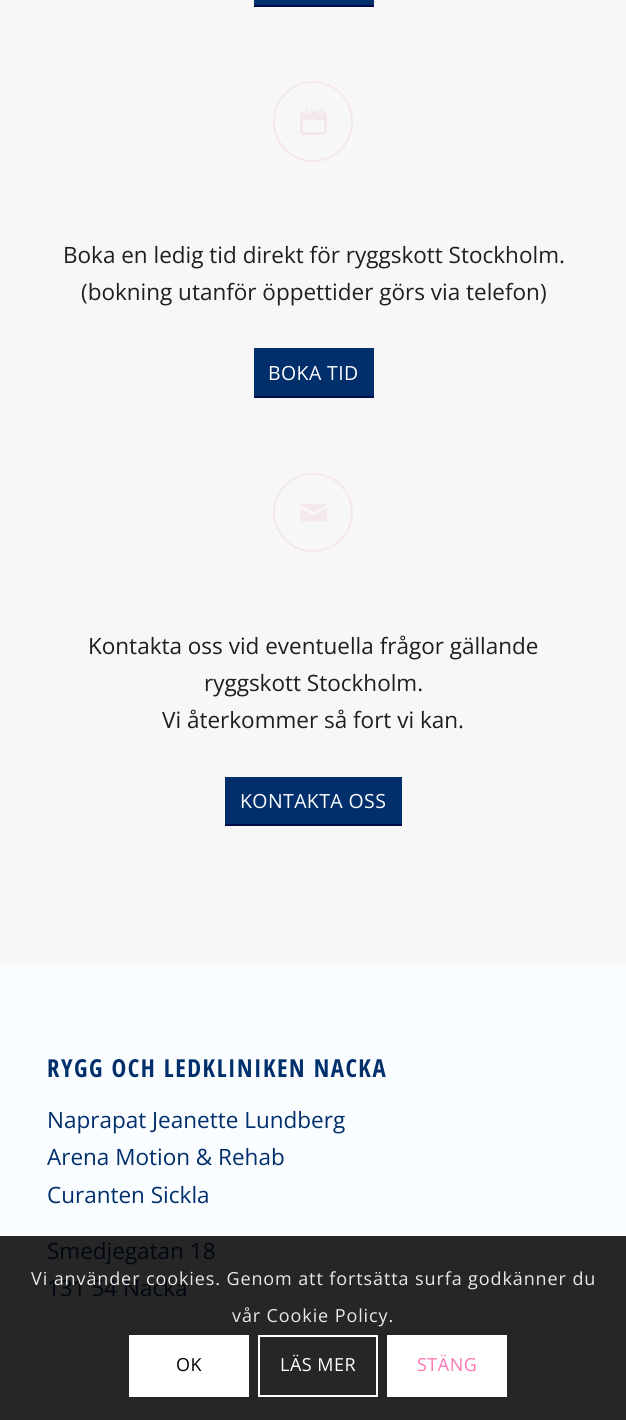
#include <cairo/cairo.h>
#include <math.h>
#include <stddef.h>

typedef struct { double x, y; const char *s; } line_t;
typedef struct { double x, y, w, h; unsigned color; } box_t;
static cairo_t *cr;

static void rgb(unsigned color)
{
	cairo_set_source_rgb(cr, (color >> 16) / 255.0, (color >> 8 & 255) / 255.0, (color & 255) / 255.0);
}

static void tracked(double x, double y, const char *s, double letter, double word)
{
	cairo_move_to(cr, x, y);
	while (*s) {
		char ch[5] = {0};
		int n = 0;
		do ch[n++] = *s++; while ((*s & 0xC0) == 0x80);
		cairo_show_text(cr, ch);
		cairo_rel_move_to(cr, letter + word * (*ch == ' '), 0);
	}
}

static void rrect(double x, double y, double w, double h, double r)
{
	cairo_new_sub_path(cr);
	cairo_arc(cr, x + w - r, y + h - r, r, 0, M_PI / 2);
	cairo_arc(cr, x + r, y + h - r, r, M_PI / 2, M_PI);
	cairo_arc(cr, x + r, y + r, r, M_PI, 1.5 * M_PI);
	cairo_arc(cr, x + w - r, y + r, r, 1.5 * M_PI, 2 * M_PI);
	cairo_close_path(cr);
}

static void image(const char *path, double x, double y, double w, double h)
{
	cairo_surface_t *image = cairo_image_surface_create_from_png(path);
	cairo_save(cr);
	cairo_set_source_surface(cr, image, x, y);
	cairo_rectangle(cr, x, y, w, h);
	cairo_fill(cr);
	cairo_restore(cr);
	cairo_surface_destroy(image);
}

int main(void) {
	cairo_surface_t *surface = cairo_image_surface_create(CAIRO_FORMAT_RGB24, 626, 1420);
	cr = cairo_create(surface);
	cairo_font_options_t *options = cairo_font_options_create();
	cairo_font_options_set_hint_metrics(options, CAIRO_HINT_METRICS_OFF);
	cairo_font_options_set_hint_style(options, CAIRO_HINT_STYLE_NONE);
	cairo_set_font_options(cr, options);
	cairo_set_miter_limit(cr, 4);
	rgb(0xf7f7f7);
	cairo_paint(cr);
	rgb(0x002f6c);
	cairo_rectangle(cr, 254, 0, 120, 5);
	cairo_fill(cr);
	rgb(0x000d4a);
	cairo_rectangle(cr, 254, 5, 120, 2);
	cairo_fill(cr);
	rrect(274, 82, 78, 79, 39);
	rgb(0xf4e7ee);
	cairo_stroke(cr);
	image("img/1.png", 300, 108, 27, 27);
	rgb(0x002f6c);
	cairo_rectangle(cr, 254, 348, 120, 48);
	cairo_fill(cr);
	rgb(0x000d4a);
	cairo_rectangle(cr, 254, 396, 120, 2);
	cairo_fill(cr);
	rrect(274, 474, 78, 77, 38.5);
	rgb(0xf4e7ee);
	cairo_stroke(cr);
	image("img/2.png", 300, 504, 27, 18);
	{
		static const box_t items[] = {
			{225, 777, 177, 47, 0x002f6c},
			{225, 824, 177, 2, 0x000d4a},
			{0, 965, 626, 271, 0xfafdff},
			{0, 1236, 626, 184, 0x262626},
			{129, 1335, 120, 62, 0xffffff},
		};
		for (size_t i = 0; i < sizeof items / sizeof *items; i++) {
			rgb(items[i].color);
			cairo_rectangle(cr, items[i].x, items[i].y, items[i].w, items[i].h);
			cairo_fill(cr);
		}
	}
	cairo_rectangle(cr, 259, 1336, 118, 60);
	cairo_stroke(cr);
	cairo_rectangle(cr, 387, 1335, 120, 62);
	cairo_fill(cr);
	cairo_select_font_face(cr, "Open Sans", CAIRO_FONT_SLANT_NORMAL, CAIRO_FONT_WEIGHT_NORMAL);
	cairo_set_font_size(cr, 22.5);
	rgb(0x1f1f1f);
	cairo_move_to(cr, 63, 263);
	cairo_show_text(cr, "Boka en ledig tid direkt för ryggskott Stockholm.");
	cairo_move_to(cr, 81, 300);
	cairo_show_text(cr, "(bokning utanför öppettider görs via telefon)");
	cairo_set_font_size(cr, 19.5);
	rgb(0xffffff);
	tracked(268, 380, "BOKA TID", 0.4, 0);
	cairo_set_font_size(cr, 22.5);
	rgb(0x1f1f1f);
	{
		static const line_t items[] = {
			{88, 654, "Kontakta oss vid eventuella frågor gällande"},
			{204, 691, "ryggskott Stockholm."},
			{162, 728, "Vi återkommer så fort vi kan."},
		};
		for (size_t i = 0; i < sizeof items / sizeof *items; i++) {
			cairo_move_to(cr, items[i].x, items[i].y);
			cairo_show_text(cr, items[i].s);
		}
	}
	cairo_set_font_size(cr, 19.5);
	rgb(0xffffff);
	tracked(240, 808, "KONTAKTA OSS", 0.4, 0);
	cairo_select_font_face(cr, "Open Sans Condensed", CAIRO_FONT_SLANT_NORMAL, CAIRO_FONT_WEIGHT_BOLD);
	cairo_set_font_size(cr, 24.75);
	rgb(0x002f6c);
	tracked(47, 1077, "RYGG OCH LEDKLINIKEN NACKA", 1.5, 0);
	cairo_select_font_face(cr, "Open Sans", CAIRO_FONT_SLANT_NORMAL, CAIRO_FONT_WEIGHT_NORMAL);
	cairo_set_font_size(cr, 22.5);
	{
		static const line_t items[] = {
			{47, 1128, "Naprapat Jeanette Lundberg"},
			{47, 1165, "Arena Motion & Rehab"},
			{47, 1203, "Curanten Sickla"},
		};
		for (size_t i = 0; i < sizeof items / sizeof *items; i++) {
			cairo_move_to(cr, items[i].x, items[i].y);
			cairo_show_text(cr, items[i].s);
		}
	}
	rgb(0x000710);
	cairo_move_to(cr, 47, 1259);
	cairo_show_text(cr, "Smedjegatan 18");
	cairo_move_to(cr, 47, 1296);
	cairo_show_text(cr, "131 54 Nacka");
	cairo_set_font_size(cr, 18);
	rgb(0xe9e9e9);
	tracked(31, 1285, "Vi använder cookies. Genom att fortsätta surfa godkänner du", 0.9, 0);
	tracked(232, 1322, "vår Cookie Policy.", 0.9, 0);
	rgb(0x000000);
	tracked(176, 1371, "OK", 0.5, 0);
	rgb(0xffffff);
	tracked(280, 1371, "LÄS MER", 0.5, 0);
	rgb(0xff75b5);
	tracked(417, 1371, "STÄNG", 0.5, 0);
	cairo_surface_write_to_png(surface, "page.png");
	cairo_font_options_destroy(options);
	cairo_destroy(cr);
	cairo_surface_destroy(surface);
	return 0;
}
